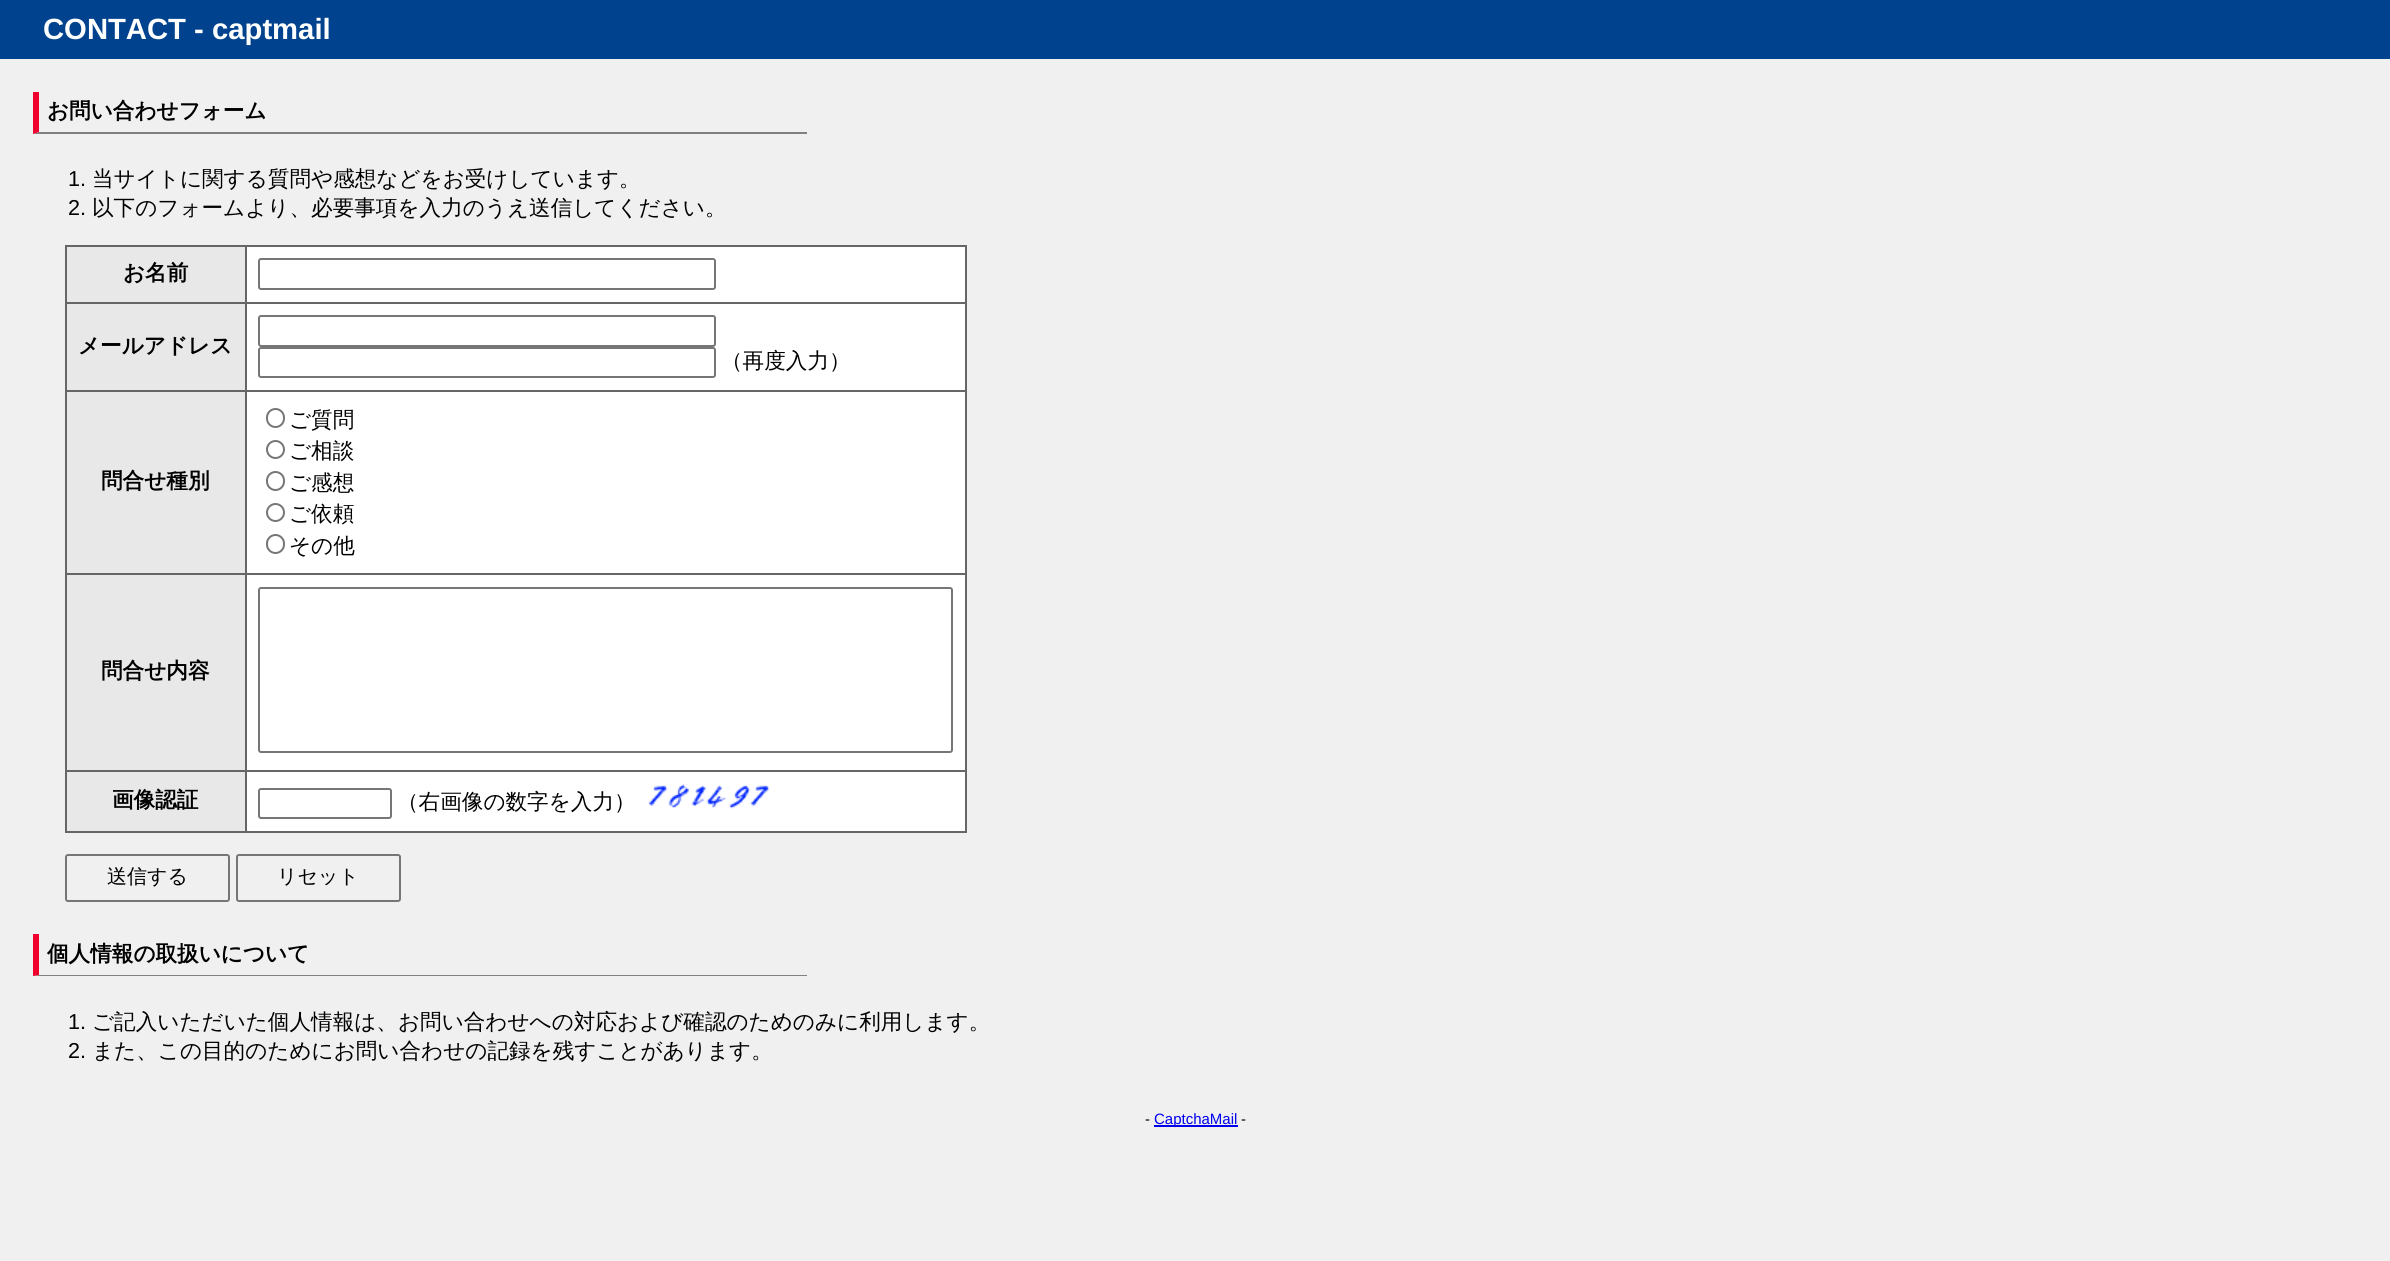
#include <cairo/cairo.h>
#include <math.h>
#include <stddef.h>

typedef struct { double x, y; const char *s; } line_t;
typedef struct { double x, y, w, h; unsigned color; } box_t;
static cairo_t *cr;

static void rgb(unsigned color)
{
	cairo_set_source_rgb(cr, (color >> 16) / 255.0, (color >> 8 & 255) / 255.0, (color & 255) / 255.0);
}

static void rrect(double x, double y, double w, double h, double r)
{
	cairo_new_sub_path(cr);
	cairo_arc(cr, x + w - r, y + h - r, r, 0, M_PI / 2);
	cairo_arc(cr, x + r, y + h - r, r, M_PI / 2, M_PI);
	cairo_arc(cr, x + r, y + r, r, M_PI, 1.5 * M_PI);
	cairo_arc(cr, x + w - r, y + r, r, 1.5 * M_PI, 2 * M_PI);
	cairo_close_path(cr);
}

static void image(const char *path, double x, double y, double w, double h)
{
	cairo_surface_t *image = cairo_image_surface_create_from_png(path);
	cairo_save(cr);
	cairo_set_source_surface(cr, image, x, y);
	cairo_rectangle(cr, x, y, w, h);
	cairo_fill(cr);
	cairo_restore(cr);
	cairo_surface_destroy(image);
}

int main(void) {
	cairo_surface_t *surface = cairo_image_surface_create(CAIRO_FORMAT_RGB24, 2390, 1261);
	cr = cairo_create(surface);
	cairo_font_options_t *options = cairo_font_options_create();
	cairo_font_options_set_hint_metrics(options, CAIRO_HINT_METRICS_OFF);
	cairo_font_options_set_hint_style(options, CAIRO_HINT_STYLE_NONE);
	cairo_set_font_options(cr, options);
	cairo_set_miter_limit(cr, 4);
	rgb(0xf0f0f0);
	cairo_paint(cr);
	rgb(0x00428e);
	cairo_rectangle(cr, 0, 0, 2390, 59);
	cairo_fill(cr);
	rgb(0x808080);
	cairo_new_path(cr);
	cairo_move_to(cr, 807, 134);
	cairo_line_to(cr, 33, 134);
	cairo_line_to(cr, 39, 132);
	cairo_line_to(cr, 807, 132);
	cairo_close_path(cr);
	cairo_fill(cr);
	rgb(0xef002d);
	cairo_new_path(cr);
	cairo_move_to(cr, 33, 134);
	cairo_line_to(cr, 33, 92);
	cairo_line_to(cr, 39, 92);
	cairo_line_to(cr, 39, 132);
	cairo_close_path(cr);
	cairo_fill(cr);
	{
		static const box_t items[] = {
			{67, 247, 178, 55, 0xe8e8e8},
			{245, 245, 721, 2, 0x666666},
			{245, 302, 721, 2, 0x666666},
			{245, 390, 721, 2, 0x666666},
			{245, 573, 721, 2, 0x666666},
			{245, 770, 721, 2, 0x666666},
			{965, 770, 2, 63, 0x666666},
			{245, 831, 721, 2, 0x666666},
			{245, 770, 2, 63, 0x666666},
			{65, 770, 181, 2, 0x666666},
			{245, 573, 2, 198, 0x666666},
			{65, 573, 181, 2, 0x666666},
			{245, 390, 2, 185, 0x666666},
			{65, 390, 181, 2, 0x666666},
			{245, 302, 2, 90, 0x666666},
			{65, 302, 181, 2, 0x666666},
			{245, 245, 2, 58, 0x666666},
			{65, 245, 181, 2, 0x666666},
			{65, 831, 181, 2, 0x666666},
			{65, 770, 2, 63, 0x666666},
			{65, 573, 2, 198, 0x666666},
			{65, 390, 2, 185, 0x666666},
			{65, 302, 2, 90, 0x666666},
			{65, 245, 2, 58, 0x666666},
			{247, 247, 718, 55, 0xffffff},
			{965, 573, 2, 198, 0x666666},
			{965, 390, 2, 185, 0x666666},
			{965, 302, 2, 90, 0x666666},
			{965, 245, 2, 58, 0x666666},
		};
		for (size_t i = 0; i < sizeof items / sizeof *items; i++) {
			rgb(items[i].color);
			cairo_rectangle(cr, items[i].x, items[i].y, items[i].w, items[i].h);
			cairo_fill(cr);
		}
	}
	rrect(259, 259, 456, 30, 2);
	rgb(0x767676);
	cairo_stroke(cr);
	rgb(0xe8e8e8);
	cairo_rectangle(cr, 67, 304, 178, 86);
	cairo_fill(cr);
	rgb(0xffffff);
	cairo_rectangle(cr, 247, 304, 718, 86);
	cairo_fill(cr);
	rrect(259, 316, 456, 30, 2);
	rgb(0x767676);
	cairo_stroke(cr);
	rrect(259, 348, 456, 29, 2);
	cairo_stroke(cr);
	rgb(0xe8e8e8);
	cairo_rectangle(cr, 67, 392, 178, 181);
	cairo_fill(cr);
	rgb(0xffffff);
	cairo_rectangle(cr, 247, 392, 718, 181);
	cairo_fill(cr);
	rrect(267, 409, 17, 18, 8.5);
	rgb(0x767676);
	cairo_stroke(cr);
	cairo_arc(cr, 275.5, 449.5, 8.5, 0, 2 * M_PI);
	cairo_stroke(cr);
	rrect(267, 472, 17, 18, 8.5);
	cairo_stroke(cr);
	cairo_arc(cr, 275.5, 512.5, 8.5, 0, 2 * M_PI);
	cairo_stroke(cr);
	rrect(267, 535, 17, 18, 8.5);
	cairo_stroke(cr);
	rgb(0xe8e8e8);
	cairo_rectangle(cr, 67, 575, 178, 195);
	cairo_fill(cr);
	rgb(0xffffff);
	cairo_rectangle(cr, 247, 575, 718, 195);
	cairo_fill(cr);
	rrect(259, 588, 693, 164, 2);
	rgb(0x767676);
	cairo_stroke(cr);
	rgb(0xe8e8e8);
	cairo_rectangle(cr, 67, 772, 178, 59);
	cairo_fill(cr);
	rgb(0xffffff);
	cairo_rectangle(cr, 247, 772, 718, 59);
	cairo_fill(cr);
	rrect(259, 789, 132, 29, 2);
	rgb(0x767676);
	cairo_stroke(cr);
	image("img/1.png", 648, 784, 122, 25);
	rrect(66, 855, 163, 46, 2);
	cairo_stroke(cr);
	rrect(237, 855, 163, 46, 2);
	cairo_stroke(cr);
	rgb(0x808080);
	cairo_new_path(cr);
	cairo_move_to(cr, 807, 976);
	cairo_line_to(cr, 33, 976);
	cairo_line_to(cr, 39, 975);
	cairo_line_to(cr, 807, 975);
	cairo_close_path(cr);
	cairo_fill(cr);
	rgb(0xef002d);
	cairo_new_path(cr);
	cairo_move_to(cr, 33, 976);
	cairo_line_to(cr, 33, 934);
	cairo_line_to(cr, 39, 934);
	cairo_line_to(cr, 39, 975);
	cairo_close_path(cr);
	cairo_fill(cr);
	rgb(0x0000ee);
	cairo_rectangle(cr, 1154, 1125, 84, 2);
	cairo_fill(cr);
	cairo_select_font_face(cr, "Liberation Sans", CAIRO_FONT_SLANT_NORMAL, CAIRO_FONT_WEIGHT_BOLD);
	cairo_set_font_size(cr, 29.25);
	rgb(0xffffff);
	cairo_move_to(cr, 43, 39);
	cairo_show_text(cr, "CONTACT - captmail");
	cairo_select_font_face(cr, "WenQuanYi Zen Hei", CAIRO_FONT_SLANT_NORMAL, CAIRO_FONT_WEIGHT_BOLD);
	cairo_set_font_size(cr, 21.6);
	rgb(0x000000);
	cairo_move_to(cr, 47, 118);
	cairo_show_text(cr, "お問い合わせフォーム");
	cairo_select_font_face(cr, "Liberation Sans", CAIRO_FONT_SLANT_NORMAL, CAIRO_FONT_WEIGHT_NORMAL);
	cairo_move_to(cr, 68, 186);
	cairo_show_text(cr, "1.");
	cairo_select_font_face(cr, "WenQuanYi Zen Hei Medium", CAIRO_FONT_SLANT_NORMAL, CAIRO_FONT_WEIGHT_NORMAL);
	cairo_move_to(cr, 92, 186);
	cairo_show_text(cr, "当サイトに関する質問や感想などをお受けしています。");
	cairo_select_font_face(cr, "Liberation Sans", CAIRO_FONT_SLANT_NORMAL, CAIRO_FONT_WEIGHT_NORMAL);
	cairo_move_to(cr, 68, 215);
	cairo_show_text(cr, "2.");
	cairo_select_font_face(cr, "WenQuanYi Zen Hei Medium", CAIRO_FONT_SLANT_NORMAL, CAIRO_FONT_WEIGHT_NORMAL);
	cairo_move_to(cr, 92, 215);
	cairo_show_text(cr, "以下のフォームより、必要事項を入力のうえ送信してください。");
	cairo_select_font_face(cr, "WenQuanYi Zen Hei", CAIRO_FONT_SLANT_NORMAL, CAIRO_FONT_WEIGHT_BOLD);
	cairo_move_to(cr, 123, 280);
	cairo_show_text(cr, "お名前");
	cairo_move_to(cr, 78, 353);
	cairo_show_text(cr, "メールアドレス");
	cairo_select_font_face(cr, "WenQuanYi Zen Hei Medium", CAIRO_FONT_SLANT_NORMAL, CAIRO_FONT_WEIGHT_NORMAL);
	cairo_move_to(cr, 721, 368);
	cairo_show_text(cr, "（再度入力）");
	cairo_select_font_face(cr, "WenQuanYi Zen Hei", CAIRO_FONT_SLANT_NORMAL, CAIRO_FONT_WEIGHT_BOLD);
	cairo_move_to(cr, 101, 488);
	cairo_show_text(cr, "問合せ種別");
	cairo_select_font_face(cr, "WenQuanYi Zen Hei Medium", CAIRO_FONT_SLANT_NORMAL, CAIRO_FONT_WEIGHT_NORMAL);
	{
		static const line_t items[] = {
			{289, 427, "ご質問"},
			{289, 458, "ご相談"},
			{289, 490, "ご感想"},
			{289, 521, "ご依頼"},
			{289, 553, "その他"},
		};
		for (size_t i = 0; i < sizeof items / sizeof *items; i++) {
			cairo_move_to(cr, items[i].x, items[i].y);
			cairo_show_text(cr, items[i].s);
		}
	}
	cairo_select_font_face(cr, "WenQuanYi Zen Hei", CAIRO_FONT_SLANT_NORMAL, CAIRO_FONT_WEIGHT_BOLD);
	cairo_move_to(cr, 101, 678);
	cairo_show_text(cr, "問合せ内容");
	cairo_move_to(cr, 112, 807);
	cairo_show_text(cr, "画像認証");
	cairo_select_font_face(cr, "WenQuanYi Zen Hei Medium", CAIRO_FONT_SLANT_NORMAL, CAIRO_FONT_WEIGHT_NORMAL);
	cairo_move_to(cr, 397, 809);
	cairo_show_text(cr, "（右画像の数字を入力）");
	cairo_set_font_size(cr, 20);
	cairo_move_to(cr, 107, 883);
	cairo_show_text(cr, "送信する");
	cairo_move_to(cr, 277, 883);
	cairo_show_text(cr, "リセット");
	cairo_select_font_face(cr, "WenQuanYi Zen Hei", CAIRO_FONT_SLANT_NORMAL, CAIRO_FONT_WEIGHT_BOLD);
	cairo_set_font_size(cr, 21.6);
	cairo_move_to(cr, 47, 961);
	cairo_show_text(cr, "個人情報の取扱いについて");
	cairo_select_font_face(cr, "Liberation Sans", CAIRO_FONT_SLANT_NORMAL, CAIRO_FONT_WEIGHT_NORMAL);
	cairo_move_to(cr, 68, 1029);
	cairo_show_text(cr, "1.");
	cairo_select_font_face(cr, "WenQuanYi Zen Hei Medium", CAIRO_FONT_SLANT_NORMAL, CAIRO_FONT_WEIGHT_NORMAL);
	cairo_move_to(cr, 92, 1029);
	cairo_show_text(cr, "ご記入いただいた個人情報は、お問い合わせへの対応および確認のためのみに利用します。");
	cairo_select_font_face(cr, "Liberation Sans", CAIRO_FONT_SLANT_NORMAL, CAIRO_FONT_WEIGHT_NORMAL);
	cairo_move_to(cr, 68, 1058);
	cairo_show_text(cr, "2.");
	cairo_select_font_face(cr, "WenQuanYi Zen Hei Medium", CAIRO_FONT_SLANT_NORMAL, CAIRO_FONT_WEIGHT_NORMAL);
	cairo_move_to(cr, 92, 1058);
	cairo_show_text(cr, "また、この目的のためにお問い合わせの記録を残すことがあります。");
	cairo_select_font_face(cr, "Liberation Sans", CAIRO_FONT_SLANT_NORMAL, CAIRO_FONT_WEIGHT_NORMAL);
	cairo_set_font_size(cr, 15);
	cairo_move_to(cr, 1145, 1124);
	cairo_show_text(cr, "-");
	rgb(0x0000ee);
	cairo_move_to(cr, 1154, 1124);
	cairo_show_text(cr, "CaptchaMail");
	rgb(0x000000);
	cairo_move_to(cr, 1241, 1124);
	cairo_show_text(cr, "-");
	cairo_surface_write_to_png(surface, "page.png");
	cairo_font_options_destroy(options);
	cairo_destroy(cr);
	cairo_surface_destroy(surface);
	return 0;
}
